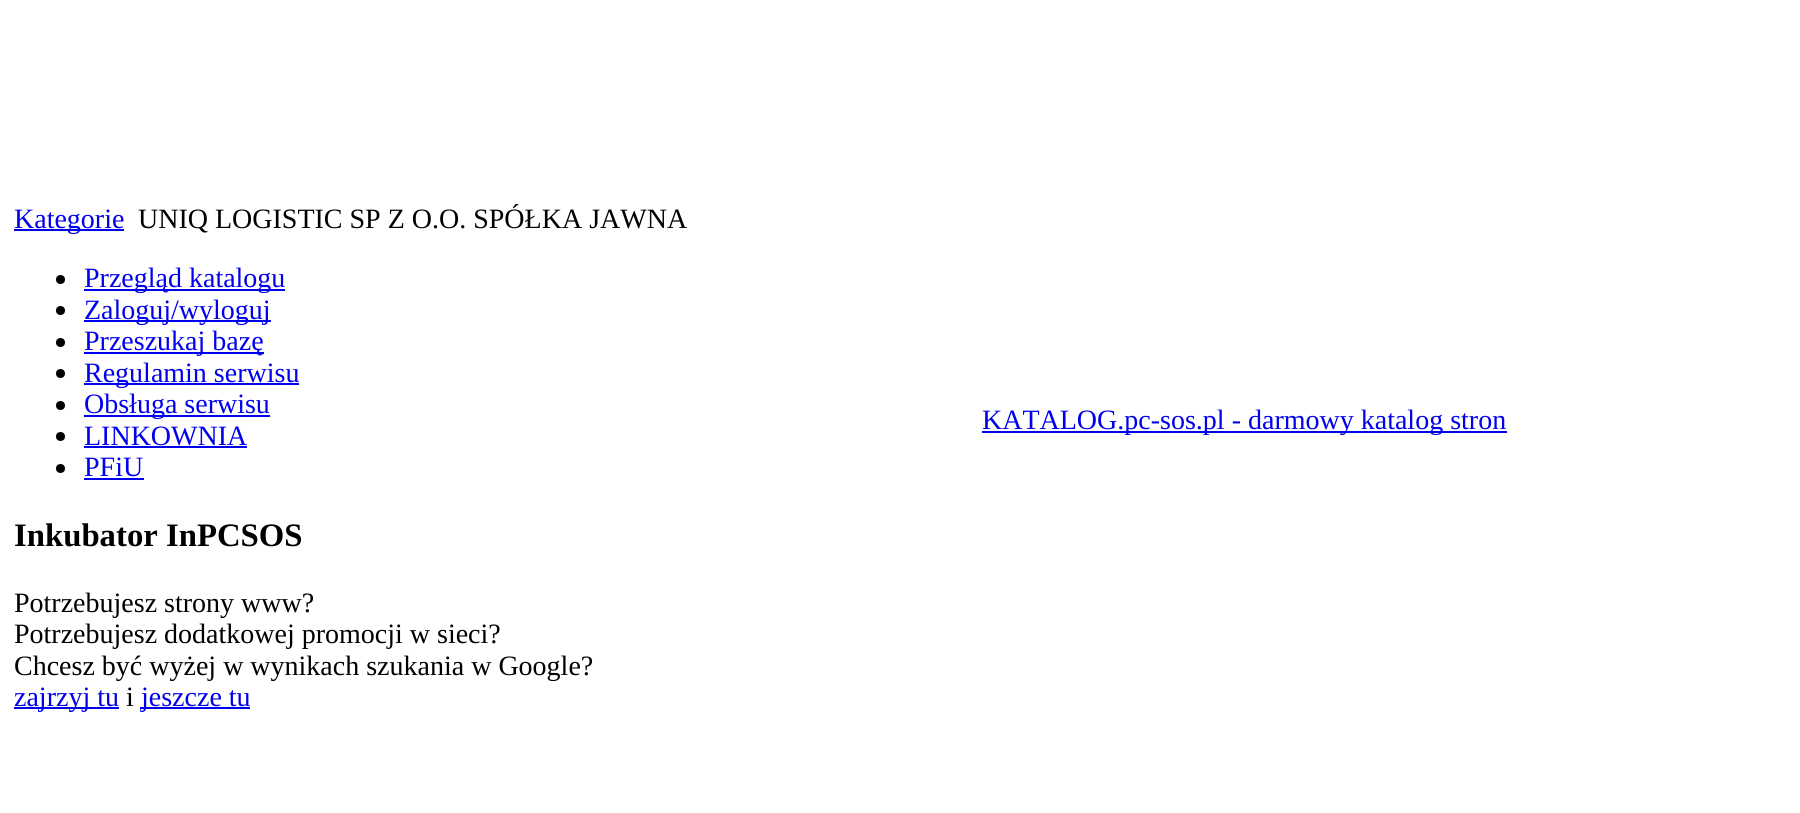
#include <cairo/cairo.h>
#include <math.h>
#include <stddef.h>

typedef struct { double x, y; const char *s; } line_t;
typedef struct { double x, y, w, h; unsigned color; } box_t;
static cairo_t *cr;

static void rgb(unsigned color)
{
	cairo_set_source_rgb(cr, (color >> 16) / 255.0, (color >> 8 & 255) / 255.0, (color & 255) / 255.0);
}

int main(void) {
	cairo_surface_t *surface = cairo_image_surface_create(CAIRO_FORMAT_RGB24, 1800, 813);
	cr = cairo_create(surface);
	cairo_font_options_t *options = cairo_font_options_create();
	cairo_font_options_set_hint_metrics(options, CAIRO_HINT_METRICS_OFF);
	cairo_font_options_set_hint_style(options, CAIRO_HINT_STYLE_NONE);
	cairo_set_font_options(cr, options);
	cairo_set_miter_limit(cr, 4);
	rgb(0xffffff);
	cairo_paint(cr);
	rgb(0x0000ee);
	cairo_rectangle(cr, 14, 229, 110, 2);
	cairo_fill(cr);
	rgb(0x000000);
	cairo_arc(cr, 60.5, 279.5, 4.5, 0, 2 * M_PI);
	cairo_fill(cr);
	rgb(0x0000ee);
	cairo_rectangle(cr, 84, 289, 201, 2);
	cairo_fill(cr);
	rgb(0x000000);
	cairo_arc(cr, 60.5, 310.5, 4.5, 0, 2 * M_PI);
	cairo_fill(cr);
	rgb(0x0000ee);
	cairo_rectangle(cr, 84, 320, 187, 2);
	cairo_fill(cr);
	rgb(0x000000);
	cairo_arc(cr, 60.5, 342.5, 4.5, 0, 2 * M_PI);
	cairo_fill(cr);
	rgb(0x0000ee);
	cairo_rectangle(cr, 84, 352, 180, 2);
	cairo_fill(cr);
	rgb(0x000000);
	cairo_arc(cr, 60.5, 373.5, 4.5, 0, 2 * M_PI);
	cairo_fill(cr);
	rgb(0x0000ee);
	cairo_rectangle(cr, 84, 383, 215, 2);
	cairo_fill(cr);
	rgb(0x000000);
	cairo_arc(cr, 60.5, 405.5, 4.5, 0, 2 * M_PI);
	cairo_fill(cr);
	rgb(0x0000ee);
	cairo_rectangle(cr, 84, 415, 186, 2);
	cairo_fill(cr);
	rgb(0x000000);
	cairo_arc(cr, 60.5, 436.5, 4.5, 0, 2 * M_PI);
	cairo_fill(cr);
	rgb(0x0000ee);
	cairo_rectangle(cr, 84, 446, 163, 2);
	cairo_fill(cr);
	rgb(0x000000);
	cairo_arc(cr, 60.5, 468.5, 4.5, 0, 2 * M_PI);
	cairo_fill(cr);
	{
		static const box_t items[] = {
			{84, 478, 60, 2, 0x0000ee},
			{14, 707, 105, 2, 0x0000ee},
			{140, 707, 110, 2, 0x0000ee},
			{982, 431, 525, 2, 0x0000ee},
		};
		for (size_t i = 0; i < sizeof items / sizeof *items; i++) {
			rgb(items[i].color);
			cairo_rectangle(cr, items[i].x, items[i].y, items[i].w, items[i].h);
			cairo_fill(cr);
		}
	}
	cairo_select_font_face(cr, "Liberation Serif", CAIRO_FONT_SLANT_NORMAL, CAIRO_FONT_WEIGHT_NORMAL);
	cairo_set_font_size(cr, 28);
	cairo_move_to(cr, 14, 228);
	cairo_show_text(cr, "Kategorie");
	rgb(0x000000);
	cairo_move_to(cr, 138, 228);
	cairo_show_text(cr, "UNIQ LOGISTIC SP Z O.O. SPÓŁKA JAWNA");
	rgb(0x0000ee);
	{
		static const line_t items[] = {
			{84, 287, "Przegląd katalogu"},
			{84, 319, "Zaloguj/wyloguj"},
			{84, 350, "Przeszukaj bazę"},
			{84, 382, "Regulamin serwisu"},
			{84, 413, "Obsługa serwisu"},
			{84, 445, "LINKOWNIA"},
			{84, 476, "PFiU"},
		};
		for (size_t i = 0; i < sizeof items / sizeof *items; i++) {
			cairo_move_to(cr, items[i].x, items[i].y);
			cairo_show_text(cr, items[i].s);
		}
	}
	cairo_select_font_face(cr, "Liberation Serif", CAIRO_FONT_SLANT_NORMAL, CAIRO_FONT_WEIGHT_BOLD);
	cairo_set_font_size(cr, 32.75);
	rgb(0x000000);
	cairo_move_to(cr, 14, 546);
	cairo_show_text(cr, "Inkubator InPCSOS");
	cairo_select_font_face(cr, "Liberation Serif", CAIRO_FONT_SLANT_NORMAL, CAIRO_FONT_WEIGHT_NORMAL);
	cairo_set_font_size(cr, 28);
	{
		static const line_t items[] = {
			{14, 612, "Potrzebujesz strony www?"},
			{14, 643, "Potrzebujesz dodatkowej promocji w sieci?"},
			{14, 675, "Chcesz być wyżej w wynikach szukania w Google?"},
		};
		for (size_t i = 0; i < sizeof items / sizeof *items; i++) {
			cairo_move_to(cr, items[i].x, items[i].y);
			cairo_show_text(cr, items[i].s);
		}
	}
	rgb(0x0000ee);
	cairo_move_to(cr, 14, 706);
	cairo_show_text(cr, "zajrzyj tu");
	rgb(0x000000);
	cairo_move_to(cr, 126, 706);
	cairo_show_text(cr, "i");
	rgb(0x0000ee);
	cairo_move_to(cr, 141, 706);
	cairo_show_text(cr, "jeszcze tu");
	cairo_move_to(cr, 982, 429);
	cairo_show_text(cr, "KATALOG.pc-sos.pl - darmowy katalog stron");
	cairo_surface_write_to_png(surface, "page.png");
	cairo_font_options_destroy(options);
	cairo_destroy(cr);
	cairo_surface_destroy(surface);
	return 0;
}
